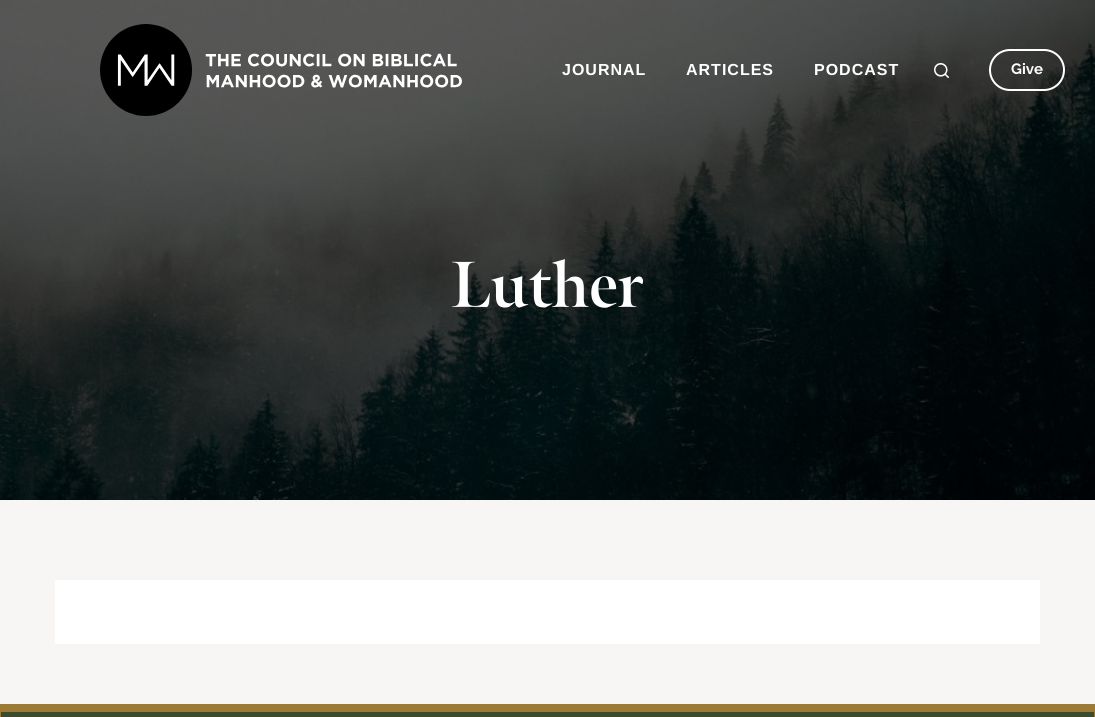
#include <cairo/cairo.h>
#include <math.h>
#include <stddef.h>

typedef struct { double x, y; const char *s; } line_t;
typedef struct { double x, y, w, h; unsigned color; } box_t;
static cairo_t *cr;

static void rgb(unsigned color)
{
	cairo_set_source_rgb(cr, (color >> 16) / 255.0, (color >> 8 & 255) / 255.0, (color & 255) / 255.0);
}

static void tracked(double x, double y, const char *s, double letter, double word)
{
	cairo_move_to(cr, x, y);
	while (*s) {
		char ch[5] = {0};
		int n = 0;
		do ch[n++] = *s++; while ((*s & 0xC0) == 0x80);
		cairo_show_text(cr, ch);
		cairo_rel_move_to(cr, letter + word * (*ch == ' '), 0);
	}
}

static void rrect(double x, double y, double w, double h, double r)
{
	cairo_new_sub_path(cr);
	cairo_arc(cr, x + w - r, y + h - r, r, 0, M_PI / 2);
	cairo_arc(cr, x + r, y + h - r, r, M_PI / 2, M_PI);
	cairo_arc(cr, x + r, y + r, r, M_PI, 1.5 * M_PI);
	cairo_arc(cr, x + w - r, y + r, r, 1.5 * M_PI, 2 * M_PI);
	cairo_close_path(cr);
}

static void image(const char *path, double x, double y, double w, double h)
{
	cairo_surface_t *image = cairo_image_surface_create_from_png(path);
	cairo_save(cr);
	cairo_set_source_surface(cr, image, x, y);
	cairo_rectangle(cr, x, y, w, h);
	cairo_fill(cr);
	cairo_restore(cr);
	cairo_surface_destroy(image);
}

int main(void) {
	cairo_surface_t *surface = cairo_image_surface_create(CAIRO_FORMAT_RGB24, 1095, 717);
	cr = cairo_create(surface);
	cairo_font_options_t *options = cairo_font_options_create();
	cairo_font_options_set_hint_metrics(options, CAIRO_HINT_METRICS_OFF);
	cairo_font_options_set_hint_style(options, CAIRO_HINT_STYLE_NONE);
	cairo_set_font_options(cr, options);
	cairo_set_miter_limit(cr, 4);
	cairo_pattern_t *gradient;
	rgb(0xf7f6f4);
	cairo_paint(cr);
	image("img/3.png", 0, 0, 1095, 500);
	image("img/1.png", 100, 24, 362, 92);
	image("img/2.png", 934, 63, 15, 15);
	rrect(990, 50, 74, 40, 20);
	rgb(0xffffff);
	cairo_stroke(cr);
	{
		static const box_t items[] = {
			{55, 580, 985, 64, 0xffffff},
			{0, 704, 1095, 8, 0x9b7b35},
			{1094, 704, 1, 13, 0x9b7b35},
			{0, 704, 1, 13, 0x9b7b35},
		};
		for (size_t i = 0; i < sizeof items / sizeof *items; i++) {
			rgb(items[i].color);
			cairo_rectangle(cr, items[i].x, items[i].y, items[i].w, items[i].h);
			cairo_fill(cr);
		}
	}
	gradient = cairo_pattern_create_linear(548, 712, 548, 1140);
	cairo_pattern_add_color_stop_rgba(gradient, 0, 0.239, 0.294, 0.176, 1);
	cairo_pattern_add_color_stop_rgba(gradient, 0.52, 0.157, 0.184, 0.129, 1);
	cairo_set_source(cr, gradient);
	cairo_pattern_destroy(gradient);
	cairo_rectangle(cr, 1, 712, 1093, 5);
	cairo_fill(cr);
	cairo_select_font_face(cr, "Liberation Sans", CAIRO_FONT_SLANT_NORMAL, CAIRO_FONT_WEIGHT_BOLD);
	cairo_set_font_size(cr, 16);
	rgb(0xffffff);
	{
		static const line_t items[] = {
			{562, 75, "JOURNAL"},
			{686, 75, "ARTICLES"},
			{814, 75, "PODCAST"},
		};
		for (size_t i = 0; i < sizeof items / sizeof *items; i++) {
			tracked(items[i].x, items[i].y, items[i].s, 1, 0);
		}
	}
	cairo_select_font_face(cr, "Raleway Thin", CAIRO_FONT_SLANT_NORMAL, CAIRO_FONT_WEIGHT_NORMAL);
	cairo_set_font_size(cr, 15);
	cairo_move_to(cr, 1011, 74);
	cairo_show_text(cr, "Give");
	cairo_select_font_face(cr, "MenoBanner", CAIRO_FONT_SLANT_NORMAL, CAIRO_FONT_WEIGHT_BOLD);
	cairo_set_font_size(cr, 65);
	cairo_move_to(cr, 451, 307);
	cairo_show_text(cr, "Luther");
	cairo_surface_write_to_png(surface, "page.png");
	cairo_font_options_destroy(options);
	cairo_destroy(cr);
	cairo_surface_destroy(surface);
	return 0;
}
